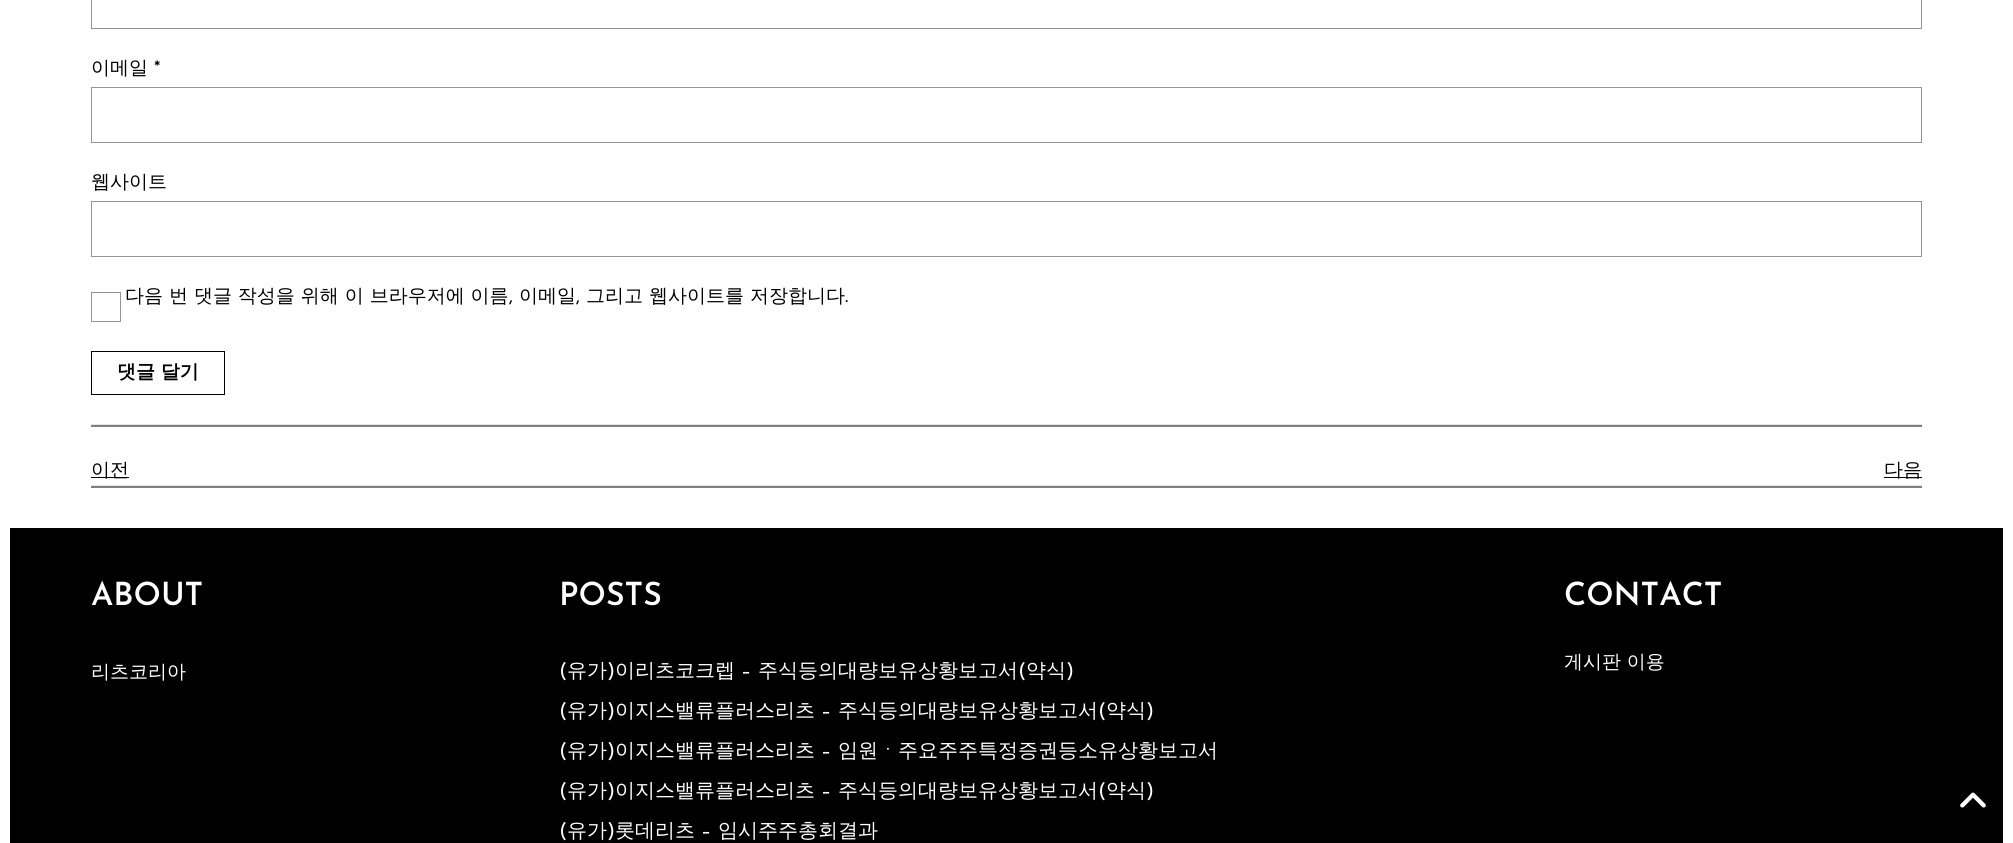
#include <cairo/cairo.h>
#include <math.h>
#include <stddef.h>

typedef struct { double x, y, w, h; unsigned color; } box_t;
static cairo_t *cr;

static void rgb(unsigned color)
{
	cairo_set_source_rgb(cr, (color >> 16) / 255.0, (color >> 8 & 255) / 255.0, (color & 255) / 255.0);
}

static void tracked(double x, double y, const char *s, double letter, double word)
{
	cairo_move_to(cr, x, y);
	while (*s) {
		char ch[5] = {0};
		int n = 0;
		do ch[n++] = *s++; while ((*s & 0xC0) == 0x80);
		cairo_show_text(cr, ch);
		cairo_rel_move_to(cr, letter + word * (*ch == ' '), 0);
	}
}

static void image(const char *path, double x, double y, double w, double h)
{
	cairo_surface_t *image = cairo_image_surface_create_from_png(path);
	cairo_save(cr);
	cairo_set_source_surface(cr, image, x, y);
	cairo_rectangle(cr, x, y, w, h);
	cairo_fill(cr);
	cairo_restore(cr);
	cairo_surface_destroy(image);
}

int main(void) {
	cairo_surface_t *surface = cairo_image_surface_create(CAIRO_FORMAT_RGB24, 2013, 843);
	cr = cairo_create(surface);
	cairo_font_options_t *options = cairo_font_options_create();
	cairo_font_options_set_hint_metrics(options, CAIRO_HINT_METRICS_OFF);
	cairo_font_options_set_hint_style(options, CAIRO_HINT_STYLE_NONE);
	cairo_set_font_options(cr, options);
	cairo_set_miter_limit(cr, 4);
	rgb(0xffffff);
	cairo_paint(cr);
	cairo_rectangle(cr, 91.5, -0.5, 1830, 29);
	rgb(0x949494);
	cairo_set_line_width(cr, 1);
	cairo_stroke(cr);
	cairo_rectangle(cr, 91.5, 87.5, 1830, 55);
	cairo_stroke(cr);
	cairo_rectangle(cr, 91.5, 201.5, 1830, 55);
	cairo_stroke(cr);
	cairo_rectangle(cr, 91.5, 292.5, 29, 29);
	cairo_stroke(cr);
	cairo_rectangle(cr, 91.5, 351.5, 133, 43);
	rgb(0x000000);
	cairo_stroke(cr);
	{
		static const box_t items[] = {
			{91, 424, 1831, 1, 0xe6e6e6},
			{91, 425, 1831, 2, 0x808080},
			{91, 477, 38, 1, 0x000000},
			{1884, 477, 38, 1, 0x000000},
			{91, 485, 1831, 1, 0xe6e6e6},
			{91, 486, 1831, 2, 0x808080},
			{10, 528, 1993, 315, 0x000000},
		};
		for (size_t i = 0; i < sizeof items / sizeof *items; i++) {
			rgb(items[i].color);
			cairo_rectangle(cr, items[i].x, items[i].y, items[i].w, items[i].h);
			cairo_fill(cr);
		}
	}
	image("img/1.png", 1960, 792, 26, 16);
	cairo_select_font_face(cr, "WenQuanYi Zen Hei Medium", CAIRO_FONT_SLANT_NORMAL, CAIRO_FONT_WEIGHT_NORMAL);
	cairo_set_font_size(cr, 19);
	cairo_move_to(cr, 91, 74);
	cairo_show_text(cr, "이메일");
	cairo_select_font_face(cr, "Josefin Sans", CAIRO_FONT_SLANT_NORMAL, CAIRO_FONT_WEIGHT_NORMAL);
	cairo_move_to(cr, 154, 74);
	cairo_show_text(cr, "*");
	cairo_select_font_face(cr, "WenQuanYi Zen Hei Medium", CAIRO_FONT_SLANT_NORMAL, CAIRO_FONT_WEIGHT_NORMAL);
	cairo_move_to(cr, 91, 188);
	cairo_show_text(cr, "웹사이트");
	tracked(125, 302, "다음 번 댓글 작성을 위해 이 브라우저에 이름", 0, 0.25);
	cairo_select_font_face(cr, "Josefin Sans", CAIRO_FONT_SLANT_NORMAL, CAIRO_FONT_WEIGHT_NORMAL);
	cairo_move_to(cr, 509, 302);
	cairo_show_text(cr, ",");
	cairo_select_font_face(cr, "WenQuanYi Zen Hei Medium", CAIRO_FONT_SLANT_NORMAL, CAIRO_FONT_WEIGHT_NORMAL);
	cairo_move_to(cr, 519, 302);
	cairo_show_text(cr, "이메일");
	cairo_select_font_face(cr, "Josefin Sans", CAIRO_FONT_SLANT_NORMAL, CAIRO_FONT_WEIGHT_NORMAL);
	cairo_move_to(cr, 576, 302);
	cairo_show_text(cr, ",");
	cairo_select_font_face(cr, "WenQuanYi Zen Hei Medium", CAIRO_FONT_SLANT_NORMAL, CAIRO_FONT_WEIGHT_NORMAL);
	tracked(586, 302, "그리고 웹사이트를 저장합니다", 0, 0.25);
	cairo_select_font_face(cr, "Josefin Sans", CAIRO_FONT_SLANT_NORMAL, CAIRO_FONT_WEIGHT_NORMAL);
	cairo_move_to(cr, 845, 302);
	cairo_show_text(cr, ".");
	cairo_select_font_face(cr, "WenQuanYi Zen Hei", CAIRO_FONT_SLANT_NORMAL, CAIRO_FONT_WEIGHT_BOLD);
	cairo_move_to(cr, 117, 378);
	cairo_show_text(cr, "댓글 달기");
	cairo_select_font_face(cr, "WenQuanYi Zen Hei Medium", CAIRO_FONT_SLANT_NORMAL, CAIRO_FONT_WEIGHT_NORMAL);
	cairo_move_to(cr, 91, 476);
	cairo_show_text(cr, "이전");
	cairo_move_to(cr, 1884, 476);
	cairo_show_text(cr, "다음");
	cairo_select_font_face(cr, "Josefin Sans SemiBold", CAIRO_FONT_SLANT_NORMAL, CAIRO_FONT_WEIGHT_NORMAL);
	cairo_set_font_size(cr, 32);
	rgb(0xffffff);
	cairo_move_to(cr, 91, 605);
	cairo_show_text(cr, "ABOUT");
	cairo_select_font_face(cr, "WenQuanYi Zen Hei Medium", CAIRO_FONT_SLANT_NORMAL, CAIRO_FONT_WEIGHT_NORMAL);
	cairo_set_font_size(cr, 19);
	cairo_move_to(cr, 91, 678);
	cairo_show_text(cr, "리츠코리아");
	cairo_select_font_face(cr, "Josefin Sans SemiBold", CAIRO_FONT_SLANT_NORMAL, CAIRO_FONT_WEIGHT_NORMAL);
	cairo_set_font_size(cr, 32);
	cairo_move_to(cr, 559, 605);
	cairo_show_text(cr, "POSTS");
	cairo_select_font_face(cr, "Josefin Sans", CAIRO_FONT_SLANT_NORMAL, CAIRO_FONT_WEIGHT_NORMAL);
	cairo_set_font_size(cr, 20);
	cairo_move_to(cr, 559, 677);
	cairo_show_text(cr, "(");
	cairo_select_font_face(cr, "WenQuanYi Zen Hei Medium", CAIRO_FONT_SLANT_NORMAL, CAIRO_FONT_WEIGHT_NORMAL);
	cairo_move_to(cr, 567, 677);
	cairo_show_text(cr, "유가");
	cairo_select_font_face(cr, "Josefin Sans", CAIRO_FONT_SLANT_NORMAL, CAIRO_FONT_WEIGHT_NORMAL);
	cairo_move_to(cr, 607, 677);
	cairo_show_text(cr, ")");
	cairo_select_font_face(cr, "WenQuanYi Zen Hei Medium", CAIRO_FONT_SLANT_NORMAL, CAIRO_FONT_WEIGHT_NORMAL);
	cairo_move_to(cr, 615, 677);
	cairo_show_text(cr, "이리츠코크렙");
	cairo_select_font_face(cr, "Josefin Sans", CAIRO_FONT_SLANT_NORMAL, CAIRO_FONT_WEIGHT_NORMAL);
	cairo_move_to(cr, 741, 677);
	cairo_show_text(cr, "–");
	cairo_select_font_face(cr, "WenQuanYi Zen Hei Medium", CAIRO_FONT_SLANT_NORMAL, CAIRO_FONT_WEIGHT_NORMAL);
	cairo_move_to(cr, 758, 677);
	cairo_show_text(cr, "주식등의대량보유상황보고서");
	cairo_select_font_face(cr, "Josefin Sans", CAIRO_FONT_SLANT_NORMAL, CAIRO_FONT_WEIGHT_NORMAL);
	cairo_move_to(cr, 1018, 677);
	cairo_show_text(cr, "(");
	cairo_select_font_face(cr, "WenQuanYi Zen Hei Medium", CAIRO_FONT_SLANT_NORMAL, CAIRO_FONT_WEIGHT_NORMAL);
	cairo_move_to(cr, 1026, 677);
	cairo_show_text(cr, "약식");
	cairo_select_font_face(cr, "Josefin Sans", CAIRO_FONT_SLANT_NORMAL, CAIRO_FONT_WEIGHT_NORMAL);
	cairo_move_to(cr, 1066, 677);
	cairo_show_text(cr, ")");
	cairo_move_to(cr, 559, 717);
	cairo_show_text(cr, "(");
	cairo_select_font_face(cr, "WenQuanYi Zen Hei Medium", CAIRO_FONT_SLANT_NORMAL, CAIRO_FONT_WEIGHT_NORMAL);
	cairo_move_to(cr, 567, 717);
	cairo_show_text(cr, "유가");
	cairo_select_font_face(cr, "Josefin Sans", CAIRO_FONT_SLANT_NORMAL, CAIRO_FONT_WEIGHT_NORMAL);
	cairo_move_to(cr, 607, 717);
	cairo_show_text(cr, ")");
	cairo_select_font_face(cr, "WenQuanYi Zen Hei Medium", CAIRO_FONT_SLANT_NORMAL, CAIRO_FONT_WEIGHT_NORMAL);
	cairo_move_to(cr, 615, 717);
	cairo_show_text(cr, "이지스밸류플러스리츠");
	cairo_select_font_face(cr, "Josefin Sans", CAIRO_FONT_SLANT_NORMAL, CAIRO_FONT_WEIGHT_NORMAL);
	cairo_move_to(cr, 821, 717);
	cairo_show_text(cr, "–");
	cairo_select_font_face(cr, "WenQuanYi Zen Hei Medium", CAIRO_FONT_SLANT_NORMAL, CAIRO_FONT_WEIGHT_NORMAL);
	cairo_move_to(cr, 838, 717);
	cairo_show_text(cr, "주식등의대량보유상황보고서");
	cairo_select_font_face(cr, "Josefin Sans", CAIRO_FONT_SLANT_NORMAL, CAIRO_FONT_WEIGHT_NORMAL);
	cairo_move_to(cr, 1098, 717);
	cairo_show_text(cr, "(");
	cairo_select_font_face(cr, "WenQuanYi Zen Hei Medium", CAIRO_FONT_SLANT_NORMAL, CAIRO_FONT_WEIGHT_NORMAL);
	cairo_move_to(cr, 1106, 717);
	cairo_show_text(cr, "약식");
	cairo_select_font_face(cr, "Josefin Sans", CAIRO_FONT_SLANT_NORMAL, CAIRO_FONT_WEIGHT_NORMAL);
	cairo_move_to(cr, 1146, 717);
	cairo_show_text(cr, ")");
	cairo_move_to(cr, 559, 757);
	cairo_show_text(cr, "(");
	cairo_select_font_face(cr, "WenQuanYi Zen Hei Medium", CAIRO_FONT_SLANT_NORMAL, CAIRO_FONT_WEIGHT_NORMAL);
	cairo_move_to(cr, 567, 757);
	cairo_show_text(cr, "유가");
	cairo_select_font_face(cr, "Josefin Sans", CAIRO_FONT_SLANT_NORMAL, CAIRO_FONT_WEIGHT_NORMAL);
	cairo_move_to(cr, 607, 757);
	cairo_show_text(cr, ")");
	cairo_select_font_face(cr, "WenQuanYi Zen Hei Medium", CAIRO_FONT_SLANT_NORMAL, CAIRO_FONT_WEIGHT_NORMAL);
	cairo_move_to(cr, 615, 757);
	cairo_show_text(cr, "이지스밸류플러스리츠");
	cairo_select_font_face(cr, "Josefin Sans", CAIRO_FONT_SLANT_NORMAL, CAIRO_FONT_WEIGHT_NORMAL);
	cairo_move_to(cr, 821, 757);
	cairo_show_text(cr, "–");
	cairo_select_font_face(cr, "WenQuanYi Zen Hei Medium", CAIRO_FONT_SLANT_NORMAL, CAIRO_FONT_WEIGHT_NORMAL);
	cairo_move_to(cr, 838, 757);
	cairo_show_text(cr, "임원ㆍ주요주주특정증권등소유상황보고서");
	cairo_select_font_face(cr, "Josefin Sans", CAIRO_FONT_SLANT_NORMAL, CAIRO_FONT_WEIGHT_NORMAL);
	cairo_move_to(cr, 559, 797);
	cairo_show_text(cr, "(");
	cairo_select_font_face(cr, "WenQuanYi Zen Hei Medium", CAIRO_FONT_SLANT_NORMAL, CAIRO_FONT_WEIGHT_NORMAL);
	cairo_move_to(cr, 567, 797);
	cairo_show_text(cr, "유가");
	cairo_select_font_face(cr, "Josefin Sans", CAIRO_FONT_SLANT_NORMAL, CAIRO_FONT_WEIGHT_NORMAL);
	cairo_move_to(cr, 607, 797);
	cairo_show_text(cr, ")");
	cairo_select_font_face(cr, "WenQuanYi Zen Hei Medium", CAIRO_FONT_SLANT_NORMAL, CAIRO_FONT_WEIGHT_NORMAL);
	cairo_move_to(cr, 615, 797);
	cairo_show_text(cr, "이지스밸류플러스리츠");
	cairo_select_font_face(cr, "Josefin Sans", CAIRO_FONT_SLANT_NORMAL, CAIRO_FONT_WEIGHT_NORMAL);
	cairo_move_to(cr, 821, 797);
	cairo_show_text(cr, "–");
	cairo_select_font_face(cr, "WenQuanYi Zen Hei Medium", CAIRO_FONT_SLANT_NORMAL, CAIRO_FONT_WEIGHT_NORMAL);
	cairo_move_to(cr, 838, 797);
	cairo_show_text(cr, "주식등의대량보유상황보고서");
	cairo_select_font_face(cr, "Josefin Sans", CAIRO_FONT_SLANT_NORMAL, CAIRO_FONT_WEIGHT_NORMAL);
	cairo_move_to(cr, 1098, 797);
	cairo_show_text(cr, "(");
	cairo_select_font_face(cr, "WenQuanYi Zen Hei Medium", CAIRO_FONT_SLANT_NORMAL, CAIRO_FONT_WEIGHT_NORMAL);
	cairo_move_to(cr, 1106, 797);
	cairo_show_text(cr, "약식");
	cairo_select_font_face(cr, "Josefin Sans", CAIRO_FONT_SLANT_NORMAL, CAIRO_FONT_WEIGHT_NORMAL);
	cairo_move_to(cr, 1146, 797);
	cairo_show_text(cr, ")");
	cairo_move_to(cr, 559, 837);
	cairo_show_text(cr, "(");
	cairo_select_font_face(cr, "WenQuanYi Zen Hei Medium", CAIRO_FONT_SLANT_NORMAL, CAIRO_FONT_WEIGHT_NORMAL);
	cairo_move_to(cr, 567, 837);
	cairo_show_text(cr, "유가");
	cairo_select_font_face(cr, "Josefin Sans", CAIRO_FONT_SLANT_NORMAL, CAIRO_FONT_WEIGHT_NORMAL);
	cairo_move_to(cr, 607, 837);
	cairo_show_text(cr, ")");
	cairo_select_font_face(cr, "WenQuanYi Zen Hei Medium", CAIRO_FONT_SLANT_NORMAL, CAIRO_FONT_WEIGHT_NORMAL);
	cairo_move_to(cr, 615, 837);
	cairo_show_text(cr, "롯데리츠");
	cairo_select_font_face(cr, "Josefin Sans", CAIRO_FONT_SLANT_NORMAL, CAIRO_FONT_WEIGHT_NORMAL);
	cairo_move_to(cr, 701, 837);
	cairo_show_text(cr, "–");
	cairo_select_font_face(cr, "WenQuanYi Zen Hei Medium", CAIRO_FONT_SLANT_NORMAL, CAIRO_FONT_WEIGHT_NORMAL);
	cairo_move_to(cr, 718, 837);
	cairo_show_text(cr, "임시주주총회결과");
	cairo_select_font_face(cr, "Josefin Sans SemiBold", CAIRO_FONT_SLANT_NORMAL, CAIRO_FONT_WEIGHT_NORMAL);
	cairo_set_font_size(cr, 32);
	cairo_move_to(cr, 1564, 605);
	cairo_show_text(cr, "CONTACT");
	cairo_select_font_face(cr, "WenQuanYi Zen Hei Medium", CAIRO_FONT_SLANT_NORMAL, CAIRO_FONT_WEIGHT_NORMAL);
	cairo_set_font_size(cr, 19);
	cairo_move_to(cr, 1564, 668);
	cairo_show_text(cr, "게시판 이용");
	cairo_surface_write_to_png(surface, "page.png");
	cairo_font_options_destroy(options);
	cairo_destroy(cr);
	cairo_surface_destroy(surface);
	return 0;
}
